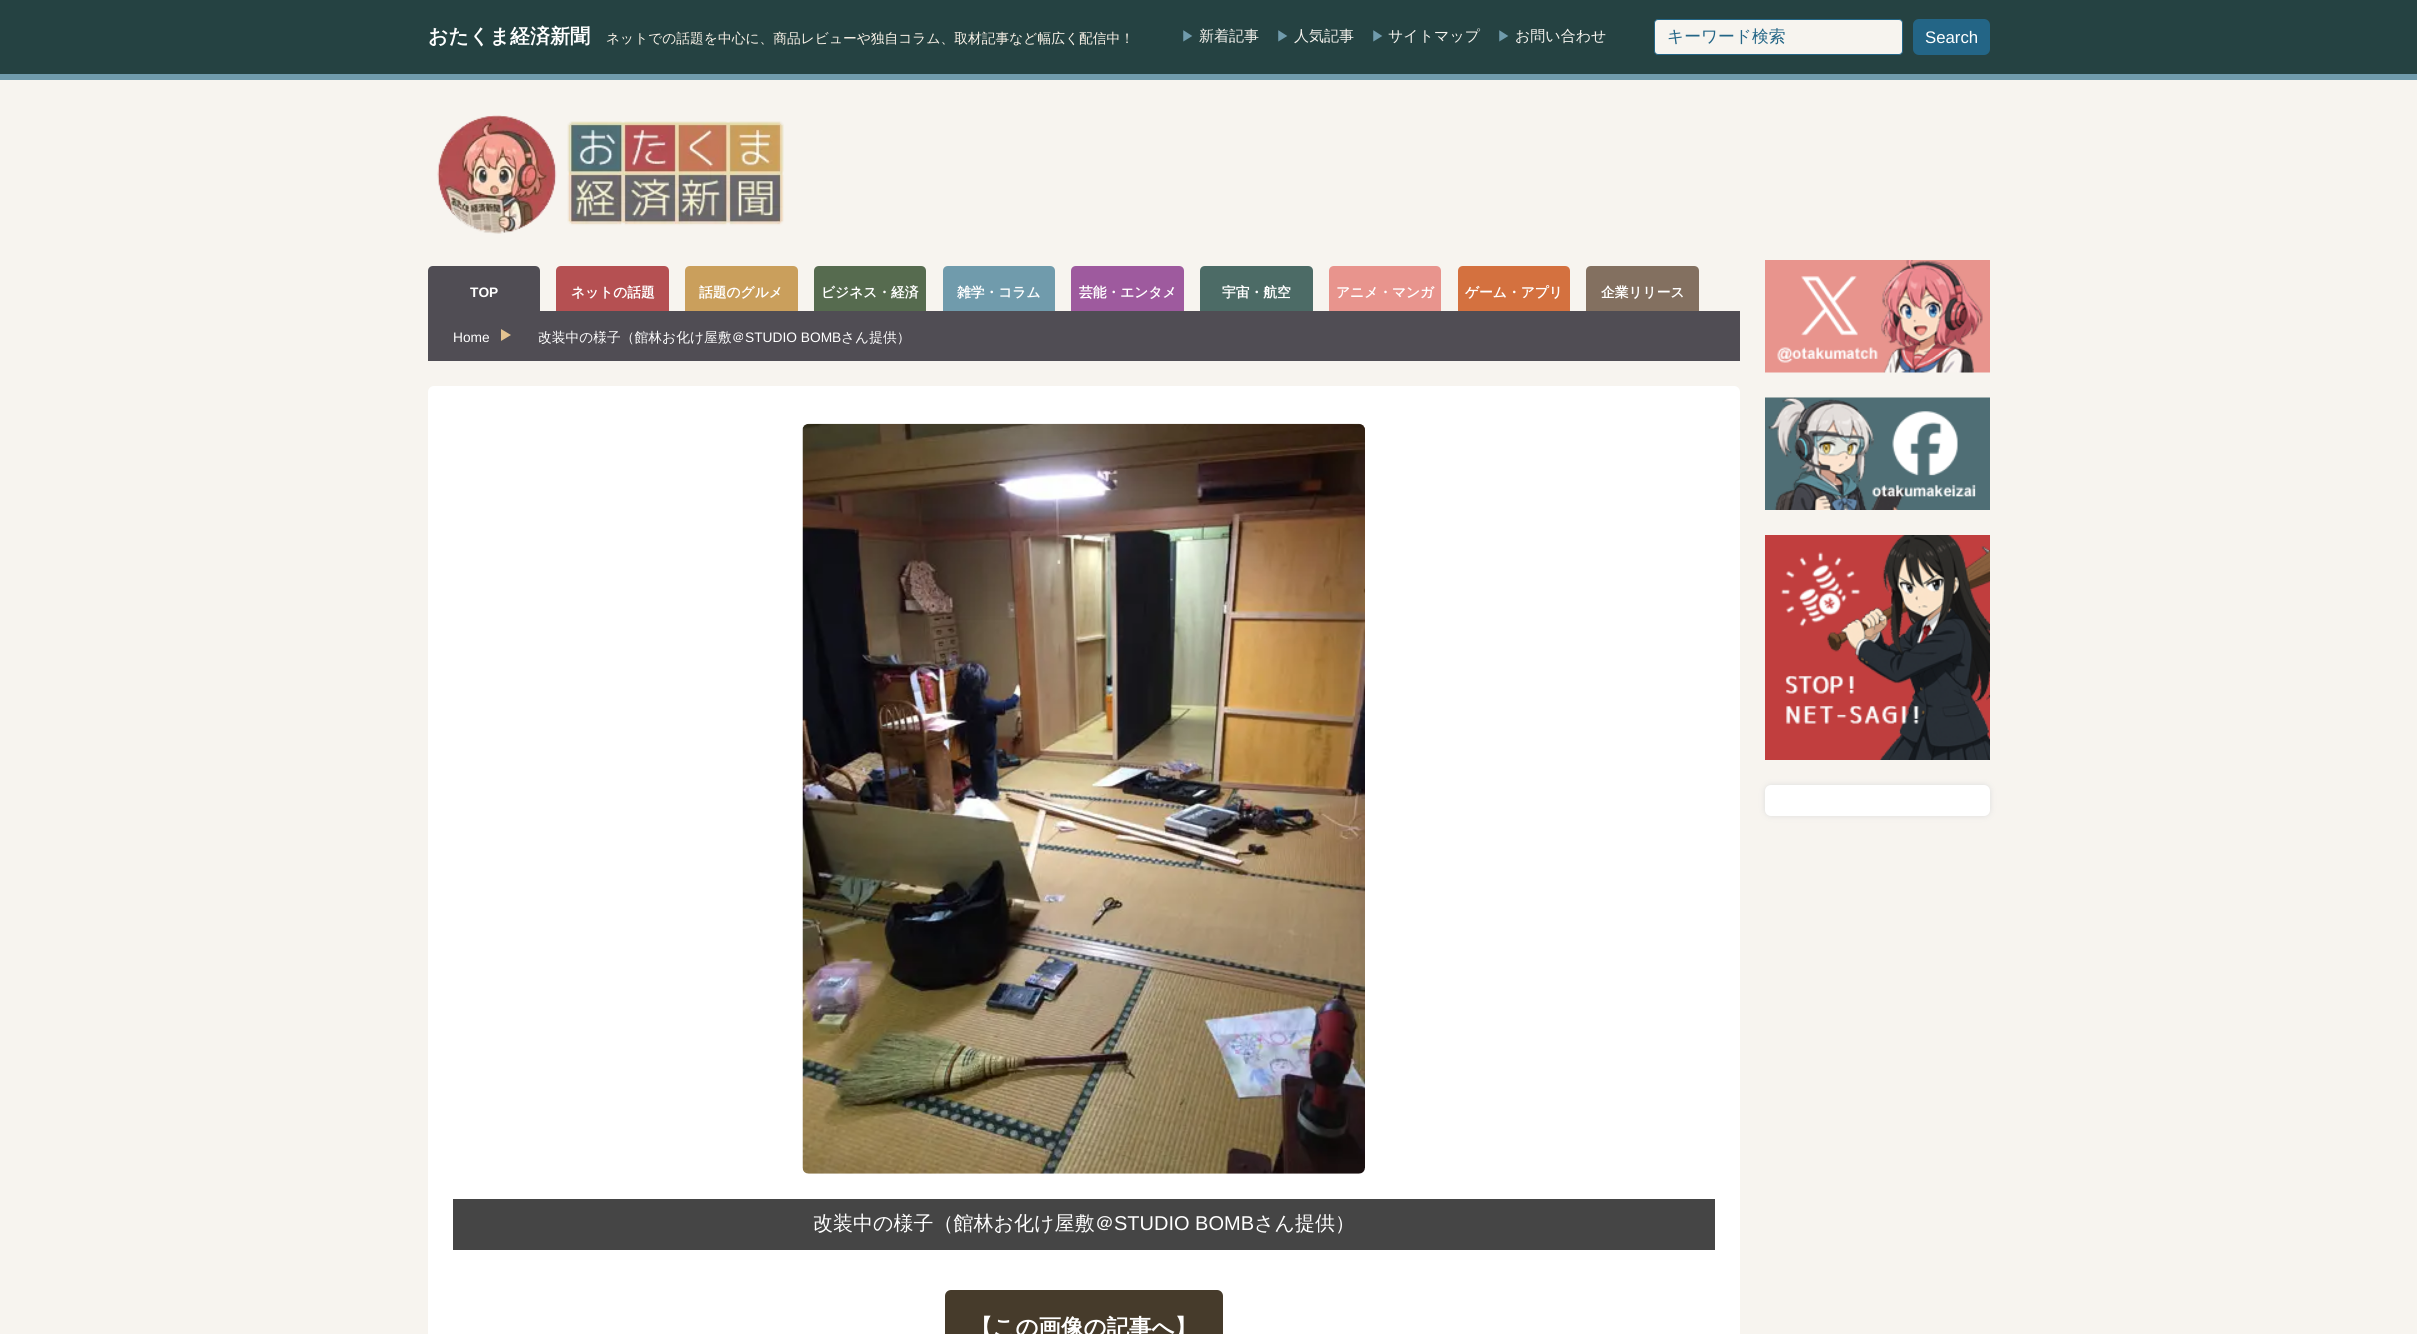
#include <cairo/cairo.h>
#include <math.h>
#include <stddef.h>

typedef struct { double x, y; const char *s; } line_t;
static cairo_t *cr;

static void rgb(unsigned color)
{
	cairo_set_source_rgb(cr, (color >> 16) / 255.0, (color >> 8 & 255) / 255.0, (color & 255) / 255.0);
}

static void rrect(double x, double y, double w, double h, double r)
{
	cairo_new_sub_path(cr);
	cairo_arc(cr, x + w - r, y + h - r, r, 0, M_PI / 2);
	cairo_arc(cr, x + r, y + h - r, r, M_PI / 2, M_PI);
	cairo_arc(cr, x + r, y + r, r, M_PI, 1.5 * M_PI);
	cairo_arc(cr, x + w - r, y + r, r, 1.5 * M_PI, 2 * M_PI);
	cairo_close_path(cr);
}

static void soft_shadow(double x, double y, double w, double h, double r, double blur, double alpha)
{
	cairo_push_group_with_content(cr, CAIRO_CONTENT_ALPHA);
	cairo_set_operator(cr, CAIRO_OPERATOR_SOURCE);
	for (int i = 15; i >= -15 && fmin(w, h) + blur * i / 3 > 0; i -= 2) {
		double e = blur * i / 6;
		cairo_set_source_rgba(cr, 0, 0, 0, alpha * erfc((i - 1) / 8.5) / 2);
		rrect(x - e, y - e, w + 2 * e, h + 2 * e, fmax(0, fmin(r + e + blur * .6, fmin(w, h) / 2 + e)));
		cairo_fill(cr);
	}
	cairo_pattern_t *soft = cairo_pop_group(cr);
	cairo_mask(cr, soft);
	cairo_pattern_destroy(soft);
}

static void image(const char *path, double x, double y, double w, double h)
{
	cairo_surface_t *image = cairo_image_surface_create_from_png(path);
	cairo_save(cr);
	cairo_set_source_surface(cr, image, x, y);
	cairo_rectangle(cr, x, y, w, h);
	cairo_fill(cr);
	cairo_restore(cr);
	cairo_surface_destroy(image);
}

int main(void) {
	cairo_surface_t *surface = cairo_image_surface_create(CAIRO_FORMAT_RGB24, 2417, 1334);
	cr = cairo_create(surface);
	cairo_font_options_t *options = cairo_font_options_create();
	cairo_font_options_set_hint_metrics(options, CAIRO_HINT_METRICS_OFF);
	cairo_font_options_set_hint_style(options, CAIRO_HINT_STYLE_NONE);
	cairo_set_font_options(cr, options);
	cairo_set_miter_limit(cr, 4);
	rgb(0xf7f4ef);
	cairo_paint(cr);
	rgb(0x254242);
	cairo_rectangle(cr, 0, 0, 2417, 74);
	cairo_fill(cr);
	rgb(0x709bac);
	cairo_rectangle(cr, 0, 74, 2417, 6);
	cairo_fill(cr);
	rgb(0xf7f4ef);
	rrect(1654.5, 19.5, 248, 35, 3.5);
	cairo_fill_preserve(cr);
	rgb(0x236586);
	cairo_set_line_width(cr, 1);
	cairo_stroke(cr);
	rrect(1913, 19, 77, 36, 6);
	cairo_fill(cr);
	image("img/1.png", 437, 115, 347, 119);
	rgb(0x504d54);
	cairo_new_path(cr);
	cairo_move_to(cr, 433, 266);
	cairo_line_to(cr, 535, 266);
	cairo_curve_to(cr, 538, 266, 540, 268, 540, 271);
	cairo_line_to(cr, 540, 311);
	cairo_line_to(cr, 428, 311);
	cairo_line_to(cr, 428, 271);
	cairo_curve_to(cr, 428, 268, 430, 266, 433, 266);
	cairo_close_path(cr);
	cairo_fill(cr);
	rgb(0xb55052);
	cairo_new_path(cr);
	cairo_move_to(cr, 561, 266);
	cairo_line_to(cr, 664, 266);
	cairo_curve_to(cr, 667, 266, 669, 268, 669, 271);
	cairo_line_to(cr, 669, 311);
	cairo_line_to(cr, 556, 311);
	cairo_line_to(cr, 556, 271);
	cairo_curve_to(cr, 556, 268, 558, 266, 561, 266);
	cairo_close_path(cr);
	cairo_fill(cr);
	rgb(0xca9f5c);
	cairo_new_path(cr);
	cairo_move_to(cr, 690, 266);
	cairo_line_to(cr, 793, 266);
	cairo_curve_to(cr, 796, 266, 798, 268, 798, 271);
	cairo_line_to(cr, 798, 311);
	cairo_line_to(cr, 685, 311);
	cairo_line_to(cr, 685, 271);
	cairo_curve_to(cr, 685, 268, 687, 266, 690, 266);
	cairo_close_path(cr);
	cairo_fill(cr);
	rgb(0x566b4f);
	cairo_new_path(cr);
	cairo_move_to(cr, 819, 266);
	cairo_line_to(cr, 921, 266);
	cairo_curve_to(cr, 924, 266, 926, 268, 926, 271);
	cairo_line_to(cr, 926, 311);
	cairo_line_to(cr, 814, 311);
	cairo_line_to(cr, 814, 271);
	cairo_curve_to(cr, 814, 268, 816, 266, 819, 266);
	cairo_close_path(cr);
	cairo_fill(cr);
	rgb(0x709bac);
	cairo_new_path(cr);
	cairo_move_to(cr, 948, 266);
	cairo_line_to(cr, 1050, 266);
	cairo_curve_to(cr, 1053, 266, 1055, 268, 1055, 271);
	cairo_line_to(cr, 1055, 311);
	cairo_line_to(cr, 943, 311);
	cairo_line_to(cr, 943, 271);
	cairo_curve_to(cr, 943, 268, 945, 266, 948, 266);
	cairo_close_path(cr);
	cairo_fill(cr);
	rgb(0x9e5a9e);
	cairo_new_path(cr);
	cairo_move_to(cr, 1076, 266);
	cairo_line_to(cr, 1179, 266);
	cairo_curve_to(cr, 1182, 266, 1184, 268, 1184, 271);
	cairo_line_to(cr, 1184, 311);
	cairo_line_to(cr, 1071, 311);
	cairo_line_to(cr, 1071, 271);
	cairo_curve_to(cr, 1071, 268, 1073, 266, 1076, 266);
	cairo_close_path(cr);
	cairo_fill(cr);
	rgb(0x4c6b66);
	cairo_new_path(cr);
	cairo_move_to(cr, 1205, 266);
	cairo_line_to(cr, 1308, 266);
	cairo_curve_to(cr, 1311, 266, 1313, 268, 1313, 271);
	cairo_line_to(cr, 1313, 311);
	cairo_line_to(cr, 1200, 311);
	cairo_line_to(cr, 1200, 271);
	cairo_curve_to(cr, 1200, 268, 1202, 266, 1205, 266);
	cairo_close_path(cr);
	cairo_fill(cr);
	rgb(0xe8948d);
	cairo_new_path(cr);
	cairo_move_to(cr, 1334, 266);
	cairo_line_to(cr, 1436, 266);
	cairo_curve_to(cr, 1439, 266, 1441, 268, 1441, 271);
	cairo_line_to(cr, 1441, 311);
	cairo_line_to(cr, 1329, 311);
	cairo_line_to(cr, 1329, 271);
	cairo_curve_to(cr, 1329, 268, 1331, 266, 1334, 266);
	cairo_close_path(cr);
	cairo_fill(cr);
	rgb(0xd4713f);
	cairo_new_path(cr);
	cairo_move_to(cr, 1463, 266);
	cairo_line_to(cr, 1565, 266);
	cairo_curve_to(cr, 1568, 266, 1570, 268, 1570, 271);
	cairo_line_to(cr, 1570, 311);
	cairo_line_to(cr, 1458, 311);
	cairo_line_to(cr, 1458, 271);
	cairo_curve_to(cr, 1458, 268, 1460, 266, 1463, 266);
	cairo_close_path(cr);
	cairo_fill(cr);
	rgb(0x837060);
	cairo_new_path(cr);
	cairo_move_to(cr, 1591, 266);
	cairo_line_to(cr, 1694, 266);
	cairo_curve_to(cr, 1697, 266, 1699, 268, 1699, 271);
	cairo_line_to(cr, 1699, 311);
	cairo_line_to(cr, 1586, 311);
	cairo_line_to(cr, 1586, 271);
	cairo_curve_to(cr, 1586, 268, 1588, 266, 1591, 266);
	cairo_close_path(cr);
	cairo_fill(cr);
	rgb(0x504d54);
	cairo_rectangle(cr, 428, 311, 1312, 50);
	cairo_fill(cr);
	rgb(0xe4c390);
	cairo_new_path(cr);
	cairo_move_to(cr, 501, 341);
	cairo_line_to(cr, 501, 329);
	cairo_line_to(cr, 511, 335);
	cairo_close_path(cr);
	cairo_fill(cr);
	rgb(0xffffff);
	rrect(428, 386, 1312, 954, 6);
	cairo_fill(cr);
	image("img/2.png", 802, 423, 563, 751);
	rgb(0x454545);
	cairo_rectangle(cr, 453, 1199, 1262, 51);
	cairo_fill(cr);
	rgb(0x463b2b);
	rrect(945, 1290, 278, 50, 6);
	cairo_fill(cr);
	image("img/3.png", 1765, 260, 225, 113);
	image("img/4.png", 1765, 397, 225, 113);
	image("img/5.png", 1765, 535, 225, 225);
	rgb(0xdddddd);
	soft_shadow(1765, 785, 225, 31, 6, 3, 1);
	rgb(0xffffff);
	rrect(1765, 785, 225, 31, 6);
	cairo_fill(cr);
	cairo_select_font_face(cr, "WenQuanYi Zen Hei", CAIRO_FONT_SLANT_NORMAL, CAIRO_FONT_WEIGHT_BOLD);
	cairo_set_font_size(cr, 20);
	cairo_move_to(cr, 428, 43);
	cairo_show_text(cr, "おたくま経済新聞");
	cairo_select_font_face(cr, "WenQuanYi Zen Hei Medium", CAIRO_FONT_SLANT_NORMAL, CAIRO_FONT_WEIGHT_NORMAL);
	cairo_set_font_size(cr, 13.75);
	rgb(0xfbf3e8);
	cairo_move_to(cr, 606, 43);
	cairo_show_text(cr, "ネットでの話題を中心に、商品レビューや独自コラム、取材記事など幅広く配信中！");
	cairo_set_font_size(cr, 14);
	rgb(0x709bac);
	cairo_move_to(cr, 1181, 41);
	cairo_show_text(cr, "▶");
	cairo_set_font_size(cr, 15);
	rgb(0xf7f4ef);
	cairo_move_to(cr, 1199, 41);
	cairo_show_text(cr, "新着記事");
	cairo_set_font_size(cr, 14);
	rgb(0x709bac);
	cairo_move_to(cr, 1276, 41);
	cairo_show_text(cr, "▶");
	cairo_set_font_size(cr, 15);
	rgb(0xf7f4ef);
	cairo_move_to(cr, 1294, 41);
	cairo_show_text(cr, "人気記事");
	cairo_set_font_size(cr, 14);
	rgb(0x709bac);
	cairo_move_to(cr, 1371, 41);
	cairo_show_text(cr, "▶");
	cairo_set_font_size(cr, 15);
	rgb(0xf7f4ef);
	cairo_move_to(cr, 1388, 41);
	cairo_show_text(cr, "サイトマップ");
	cairo_set_font_size(cr, 14);
	rgb(0x709bac);
	cairo_move_to(cr, 1497, 41);
	cairo_show_text(cr, "▶");
	cairo_set_font_size(cr, 15);
	rgb(0xf7f4ef);
	cairo_move_to(cr, 1515, 41);
	cairo_show_text(cr, "お問い合わせ");
	cairo_set_font_size(cr, 16.75);
	rgb(0x236586);
	cairo_move_to(cr, 1667, 42);
	cairo_show_text(cr, "キーワード検索");
	cairo_select_font_face(cr, "Liberation Sans", CAIRO_FONT_SLANT_NORMAL, CAIRO_FONT_WEIGHT_NORMAL);
	rgb(0xffffff);
	cairo_move_to(cr, 1925, 43);
	cairo_show_text(cr, "Search");
	cairo_select_font_face(cr, "Liberation Sans", CAIRO_FONT_SLANT_NORMAL, CAIRO_FONT_WEIGHT_BOLD);
	cairo_set_font_size(cr, 13.75);
	cairo_move_to(cr, 470, 297);
	cairo_show_text(cr, "TOP");
	cairo_select_font_face(cr, "WenQuanYi Zen Hei", CAIRO_FONT_SLANT_NORMAL, CAIRO_FONT_WEIGHT_BOLD);
	{
		static const line_t items[] = {
			{571, 297, "ネットの話題"},
			{699, 297, "話題のグルメ"},
			{821, 297, "ビジネス・経済"},
			{957, 297, "雑学・コラム"},
			{1079, 297, "芸能・エンタメ"},
			{1222, 297, "宇宙・航空"},
			{1336, 297, "アニメ・マンガ"},
			{1465, 297, "ゲーム・アプリ"},
			{1601, 297, "企業リリース"},
		};
		for (size_t i = 0; i < sizeof items / sizeof *items; i++) {
			cairo_move_to(cr, items[i].x, items[i].y);
			cairo_show_text(cr, items[i].s);
		}
	}
	cairo_select_font_face(cr, "Liberation Sans", CAIRO_FONT_SLANT_NORMAL, CAIRO_FONT_WEIGHT_NORMAL);
	cairo_move_to(cr, 453, 342);
	cairo_show_text(cr, "Home");
	cairo_select_font_face(cr, "WenQuanYi Zen Hei Medium", CAIRO_FONT_SLANT_NORMAL, CAIRO_FONT_WEIGHT_NORMAL);
	cairo_move_to(cr, 538, 342);
	cairo_show_text(cr, "改装中の様子（館林お化け屋敷＠");
	cairo_select_font_face(cr, "Liberation Sans", CAIRO_FONT_SLANT_NORMAL, CAIRO_FONT_WEIGHT_NORMAL);
	cairo_move_to(cr, 745, 342);
	cairo_show_text(cr, "STUDIO BOMB");
	cairo_select_font_face(cr, "WenQuanYi Zen Hei Medium", CAIRO_FONT_SLANT_NORMAL, CAIRO_FONT_WEIGHT_NORMAL);
	cairo_move_to(cr, 841, 342);
	cairo_show_text(cr, "さん提供）");
	cairo_set_font_size(cr, 20);
	cairo_move_to(cr, 813, 1230);
	cairo_show_text(cr, "改装中の様子（館林お化け屋敷＠");
	cairo_select_font_face(cr, "Liberation Sans", CAIRO_FONT_SLANT_NORMAL, CAIRO_FONT_WEIGHT_NORMAL);
	cairo_move_to(cr, 1114, 1230);
	cairo_show_text(cr, "STUDIO BOMB");
	cairo_select_font_face(cr, "WenQuanYi Zen Hei Medium", CAIRO_FONT_SLANT_NORMAL, CAIRO_FONT_WEIGHT_NORMAL);
	cairo_move_to(cr, 1254, 1230);
	cairo_show_text(cr, "さん提供）");
	cairo_select_font_face(cr, "WenQuanYi Zen Hei", CAIRO_FONT_SLANT_NORMAL, CAIRO_FONT_WEIGHT_BOLD);
	cairo_set_font_size(cr, 22.5);
	cairo_move_to(cr, 970, 1335);
	cairo_show_text(cr, "【この画像の記事へ】");
	cairo_surface_write_to_png(surface, "page.png");
	cairo_font_options_destroy(options);
	cairo_destroy(cr);
	cairo_surface_destroy(surface);
	return 0;
}
